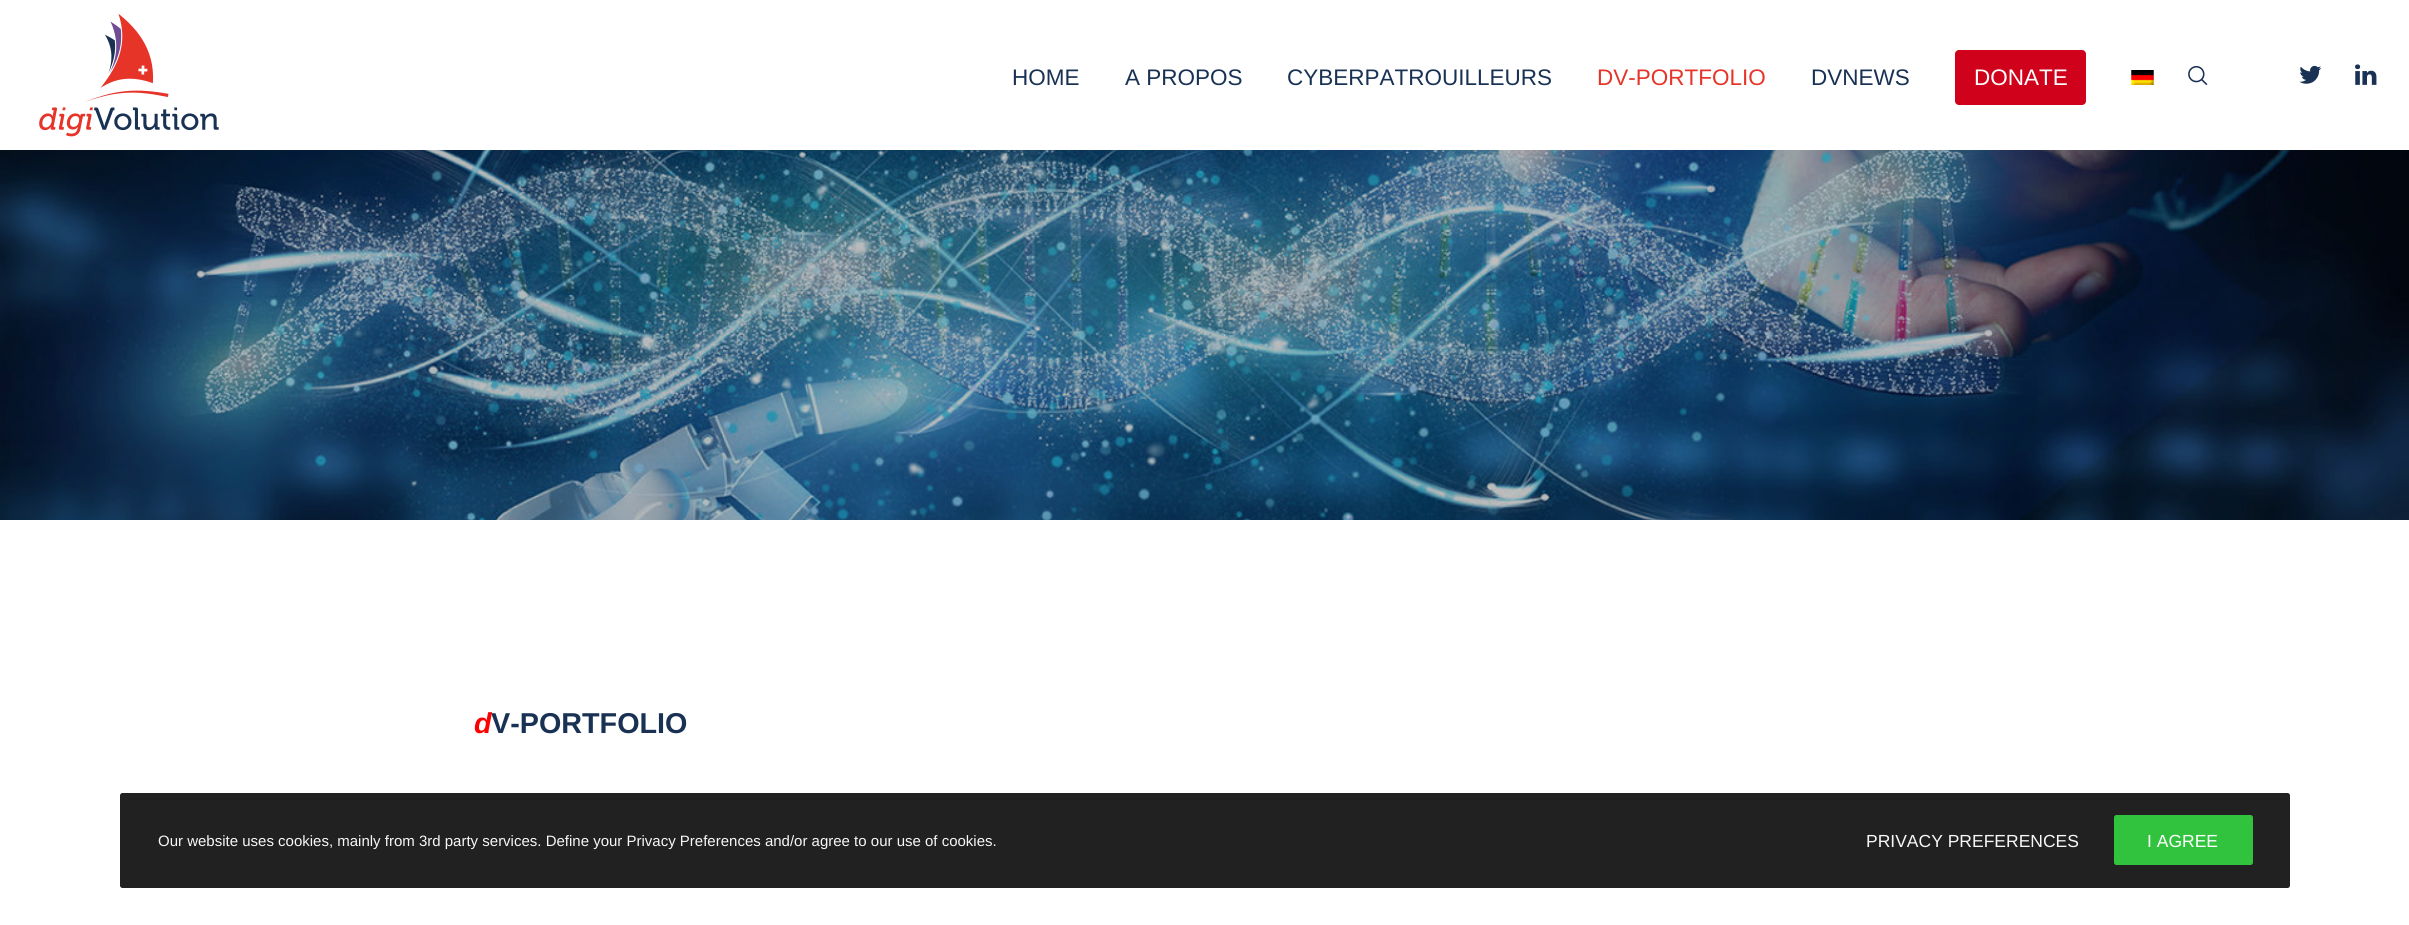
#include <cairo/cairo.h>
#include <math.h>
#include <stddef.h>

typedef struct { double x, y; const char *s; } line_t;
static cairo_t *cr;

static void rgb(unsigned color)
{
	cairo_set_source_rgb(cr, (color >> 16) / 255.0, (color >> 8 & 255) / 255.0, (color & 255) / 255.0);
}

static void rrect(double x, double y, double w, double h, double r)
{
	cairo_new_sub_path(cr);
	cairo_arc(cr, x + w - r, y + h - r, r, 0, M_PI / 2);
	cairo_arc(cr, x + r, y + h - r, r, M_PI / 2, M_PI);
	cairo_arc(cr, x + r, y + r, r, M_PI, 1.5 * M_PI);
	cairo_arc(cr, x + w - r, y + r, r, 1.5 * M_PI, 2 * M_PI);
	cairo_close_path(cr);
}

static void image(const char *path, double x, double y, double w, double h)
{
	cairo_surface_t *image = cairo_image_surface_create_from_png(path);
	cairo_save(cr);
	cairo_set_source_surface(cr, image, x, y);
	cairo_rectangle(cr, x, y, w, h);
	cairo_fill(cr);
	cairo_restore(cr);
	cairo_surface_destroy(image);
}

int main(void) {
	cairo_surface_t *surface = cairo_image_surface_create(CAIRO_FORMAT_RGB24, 2409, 925);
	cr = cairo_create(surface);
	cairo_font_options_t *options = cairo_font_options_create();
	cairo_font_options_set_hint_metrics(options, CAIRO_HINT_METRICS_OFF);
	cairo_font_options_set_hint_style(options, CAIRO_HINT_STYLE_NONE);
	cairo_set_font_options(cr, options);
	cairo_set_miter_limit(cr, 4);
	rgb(0xffffff);
	cairo_paint(cr);
	image("img/1.png", 39, 13, 180, 124);
	rgb(0xd0021b);
	rrect(1955, 50, 131, 55, 4);
	cairo_fill(cr);
	image("img/2.png", 2131, 70, 23, 15);
	image("img/3.png", 2188, 65, 20, 21);
	image("img/4.png", 2299, 65, 23, 19);
	image("img/5.png", 2355, 64, 22, 21);
	image("img/6.png", 0, 150, 2409, 370);
	cairo_set_source_rgba(cr, 0, 0, 0, 0.87);
	rrect(120, 793, 2170, 95, 2.5);
	cairo_fill(cr);
	rgb(0x32c33e);
	rrect(2114, 815, 139, 50, 2.5);
	cairo_fill(cr);
	cairo_select_font_face(cr, "Liberation Sans", CAIRO_FONT_SLANT_NORMAL, CAIRO_FONT_WEIGHT_NORMAL);
	cairo_set_font_size(cr, 22.5);
	rgb(0x193254);
	{
		static const line_t items[] = {
			{1012, 85, "HOME"},
			{1125, 85, "A PROPOS"},
			{1287, 85, "CYBERPATROUILLEURS"},
		};
		for (size_t i = 0; i < sizeof items / sizeof *items; i++) {
			cairo_move_to(cr, items[i].x, items[i].y);
			cairo_show_text(cr, items[i].s);
		}
	}
	rgb(0xe63429);
	cairo_move_to(cr, 1597, 85);
	cairo_show_text(cr, "DV-PORTFOLIO");
	rgb(0x193254);
	cairo_move_to(cr, 1811, 85);
	cairo_show_text(cr, "DVNEWS");
	rgb(0xffffff);
	cairo_move_to(cr, 1974, 85);
	cairo_show_text(cr, "DONATE");
	cairo_select_font_face(cr, "Liberation Sans", CAIRO_FONT_SLANT_ITALIC, CAIRO_FONT_WEIGHT_BOLD);
	cairo_set_font_size(cr, 28.75);
	rgb(0xff0000);
	cairo_move_to(cr, 474, 733);
	cairo_show_text(cr, "d");
	cairo_select_font_face(cr, "Liberation Sans", CAIRO_FONT_SLANT_NORMAL, CAIRO_FONT_WEIGHT_BOLD);
	rgb(0x193254);
	cairo_move_to(cr, 491, 733);
	cairo_show_text(cr, "V-PORTFOLIO");
	cairo_select_font_face(cr, "Liberation Sans", CAIRO_FONT_SLANT_NORMAL, CAIRO_FONT_WEIGHT_NORMAL);
	cairo_set_font_size(cr, 15);
	rgb(0xf7f7f7);
	cairo_move_to(cr, 158, 846);
	cairo_show_text(cr, "Our website uses cookies, mainly from 3rd party services. Define your Privacy Preferences and/or agree to our use of cookies.");
	cairo_set_font_size(cr, 17.5);
	cairo_move_to(cr, 1866, 847);
	cairo_show_text(cr, "PRIVACY PREFERENCES");
	rgb(0xffffff);
	cairo_move_to(cr, 2147, 847);
	cairo_show_text(cr, "I AGREE");
	cairo_surface_write_to_png(surface, "page.png");
	cairo_font_options_destroy(options);
	cairo_destroy(cr);
	cairo_surface_destroy(surface);
	return 0;
}
